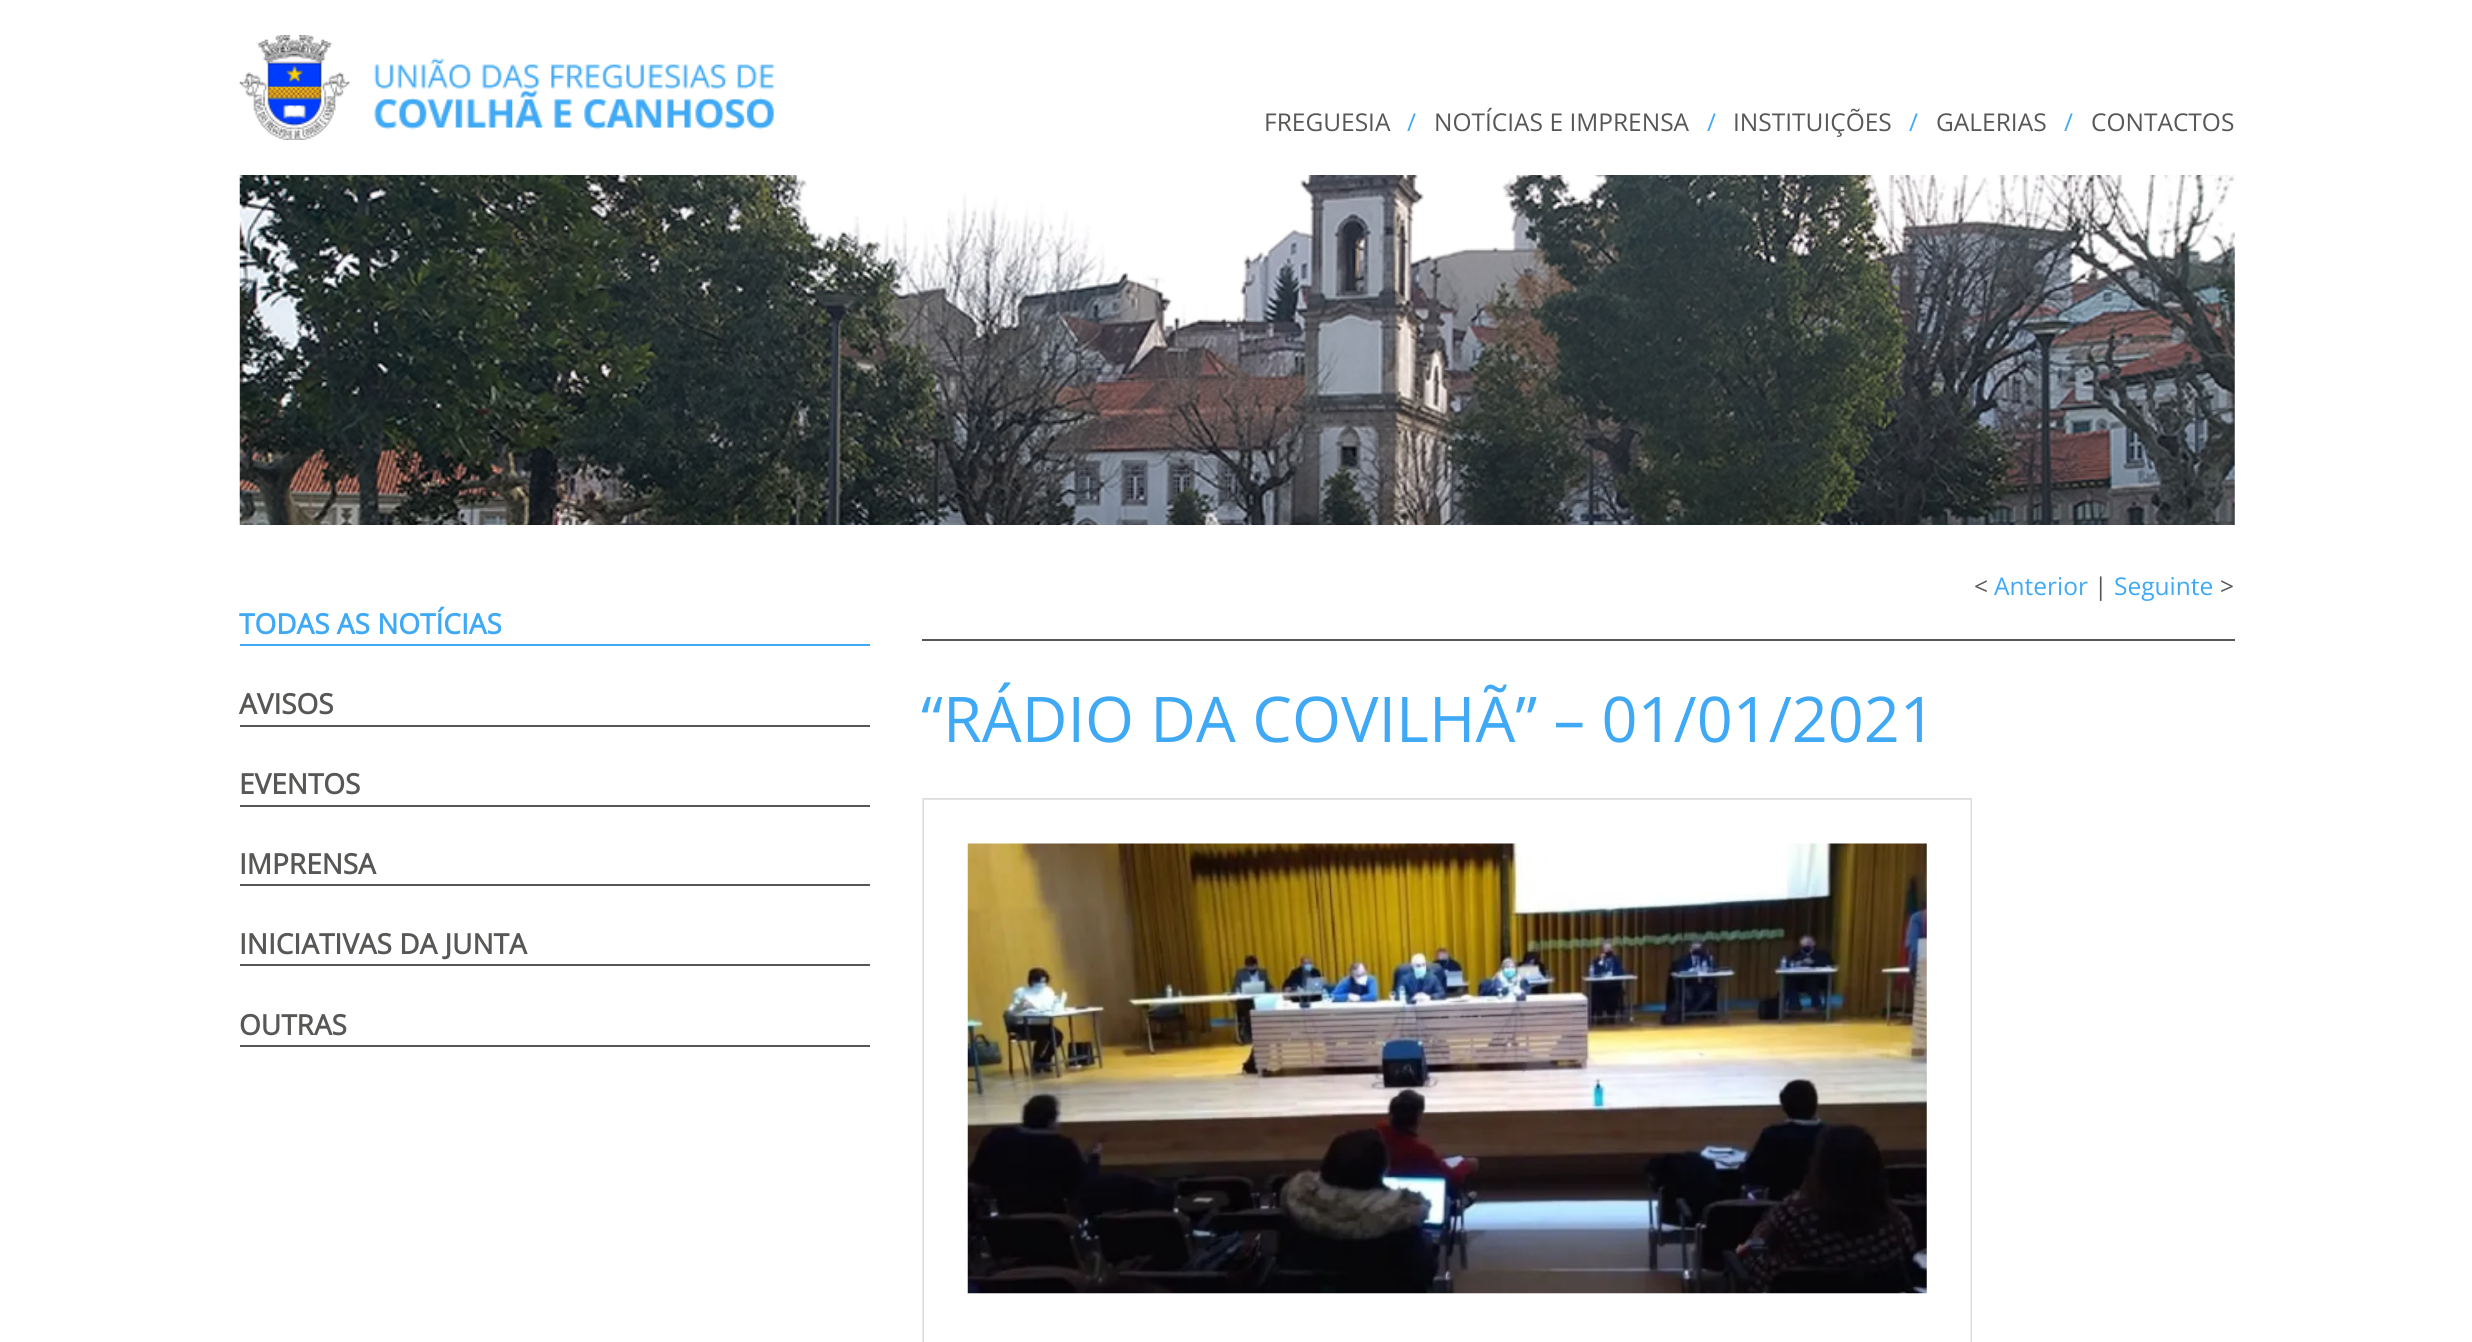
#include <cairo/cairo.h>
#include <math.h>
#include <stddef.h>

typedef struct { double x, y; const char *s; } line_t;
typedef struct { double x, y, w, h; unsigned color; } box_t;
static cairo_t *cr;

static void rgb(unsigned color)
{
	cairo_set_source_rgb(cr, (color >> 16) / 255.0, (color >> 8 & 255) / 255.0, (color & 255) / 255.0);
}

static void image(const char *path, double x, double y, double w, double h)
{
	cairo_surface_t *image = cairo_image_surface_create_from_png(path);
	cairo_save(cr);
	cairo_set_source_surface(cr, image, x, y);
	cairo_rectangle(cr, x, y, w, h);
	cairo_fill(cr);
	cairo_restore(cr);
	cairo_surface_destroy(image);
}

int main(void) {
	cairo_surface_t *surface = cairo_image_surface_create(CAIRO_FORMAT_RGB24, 2472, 1342);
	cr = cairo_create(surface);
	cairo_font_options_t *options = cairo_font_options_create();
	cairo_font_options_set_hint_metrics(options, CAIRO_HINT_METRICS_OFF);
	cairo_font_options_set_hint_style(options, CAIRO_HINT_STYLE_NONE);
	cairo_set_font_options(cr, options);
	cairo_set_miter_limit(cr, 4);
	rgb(0xffffff);
	cairo_paint(cr);
	image("img/1.png", 239, 35, 535, 105);
	image("img/2.png", 239, 175, 1996, 350);
	{
		static const box_t items[] = {
			{240, 644, 630, 2, 0x3fa9f5},
			{240, 725, 630, 2, 0x575756},
			{240, 805, 630, 2, 0x575756},
			{240, 884, 630, 2, 0x575756},
			{240, 964, 630, 2, 0x575756},
			{240, 1045, 630, 2, 0x575756},
			{922, 639, 1313, 2, 0x575756},
		};
		for (size_t i = 0; i < sizeof items / sizeof *items; i++) {
			rgb(items[i].color);
			cairo_rectangle(cr, items[i].x, items[i].y, items[i].w, items[i].h);
			cairo_fill(cr);
		}
	}
	image("img/3.png", 922, 798, 1050, 544);
	cairo_select_font_face(cr, "Open Sans", CAIRO_FONT_SLANT_NORMAL, CAIRO_FONT_WEIGHT_NORMAL);
	cairo_set_font_size(cr, 24.5);
	cairo_move_to(cr, 1264, 131);
	cairo_show_text(cr, "FREGUESIA");
	rgb(0x3fa9f5);
	cairo_move_to(cr, 1407, 131);
	cairo_show_text(cr, "/");
	rgb(0x575756);
	cairo_move_to(cr, 1434, 131);
	cairo_show_text(cr, "NOTÍCIAS E IMPRENSA");
	rgb(0x3fa9f5);
	cairo_move_to(cr, 1707, 131);
	cairo_show_text(cr, "/");
	rgb(0x575756);
	cairo_move_to(cr, 1733, 131);
	cairo_show_text(cr, "INSTITUIÇÕES");
	rgb(0x3fa9f5);
	cairo_move_to(cr, 1909, 131);
	cairo_show_text(cr, "/");
	rgb(0x575756);
	cairo_move_to(cr, 1936, 131);
	cairo_show_text(cr, "GALERIAS");
	rgb(0x3fa9f5);
	cairo_move_to(cr, 2064, 131);
	cairo_show_text(cr, "/");
	rgb(0x575756);
	cairo_move_to(cr, 2091, 131);
	cairo_show_text(cr, "CONTACTOS");
	cairo_select_font_face(cr, "Open Sans", CAIRO_FONT_SLANT_NORMAL, CAIRO_FONT_WEIGHT_BOLD);
	cairo_set_font_size(cr, 28);
	rgb(0x3fa9f5);
	cairo_move_to(cr, 239, 634);
	cairo_show_text(cr, "TODAS AS NOTÍCIAS");
	rgb(0x575756);
	{
		static const line_t items[] = {
			{239, 714, "AVISOS"},
			{239, 794, "EVENTOS"},
			{239, 874, "IMPRENSA"},
			{239, 954, "INICIATIVAS DA JUNTA"},
			{239, 1035, "OUTRAS"},
		};
		for (size_t i = 0; i < sizeof items / sizeof *items; i++) {
			cairo_move_to(cr, items[i].x, items[i].y);
			cairo_show_text(cr, items[i].s);
		}
	}
	cairo_select_font_face(cr, "Open Sans", CAIRO_FONT_SLANT_NORMAL, CAIRO_FONT_WEIGHT_NORMAL);
	cairo_set_font_size(cr, 24.5);
	cairo_move_to(cr, 1974, 595);
	cairo_show_text(cr, "<");
	rgb(0x3fa9f5);
	cairo_move_to(cr, 1994, 595);
	cairo_show_text(cr, "Anterior");
	rgb(0x575756);
	cairo_move_to(cr, 2094, 595);
	cairo_show_text(cr, "|");
	rgb(0x3fa9f5);
	cairo_move_to(cr, 2114, 595);
	cairo_show_text(cr, "Seguinte");
	rgb(0x575756);
	cairo_move_to(cr, 2220, 595);
	cairo_show_text(cr, ">");
	cairo_set_font_size(cr, 63);
	rgb(0x3fa9f5);
	cairo_move_to(cr, 921, 742);
	cairo_show_text(cr, "“RÁDIO DA COVILHÃ” – 01/01/2021");
	cairo_surface_write_to_png(surface, "page.png");
	cairo_font_options_destroy(options);
	cairo_destroy(cr);
	cairo_surface_destroy(surface);
	return 0;
}
